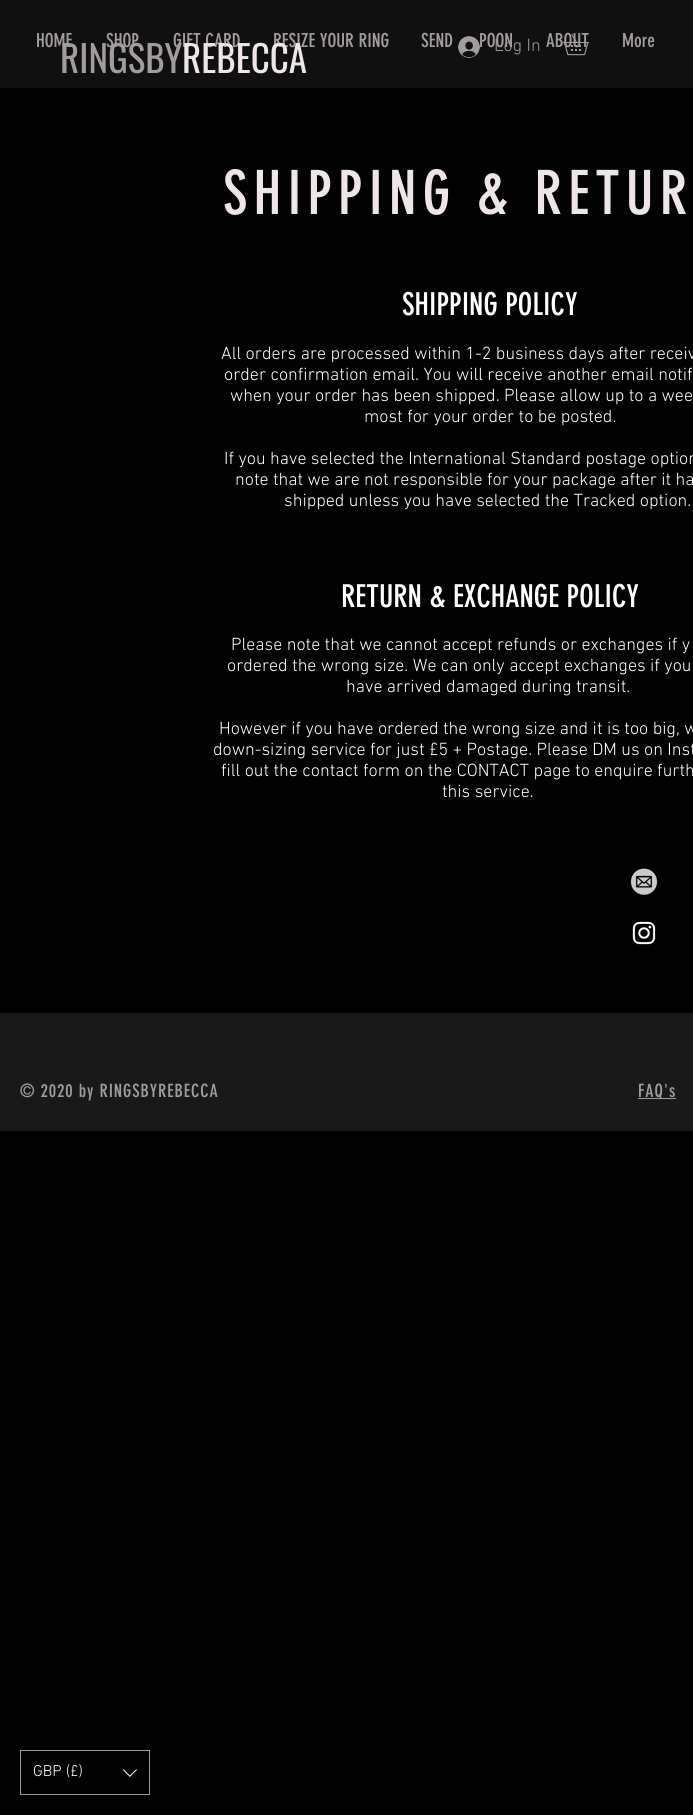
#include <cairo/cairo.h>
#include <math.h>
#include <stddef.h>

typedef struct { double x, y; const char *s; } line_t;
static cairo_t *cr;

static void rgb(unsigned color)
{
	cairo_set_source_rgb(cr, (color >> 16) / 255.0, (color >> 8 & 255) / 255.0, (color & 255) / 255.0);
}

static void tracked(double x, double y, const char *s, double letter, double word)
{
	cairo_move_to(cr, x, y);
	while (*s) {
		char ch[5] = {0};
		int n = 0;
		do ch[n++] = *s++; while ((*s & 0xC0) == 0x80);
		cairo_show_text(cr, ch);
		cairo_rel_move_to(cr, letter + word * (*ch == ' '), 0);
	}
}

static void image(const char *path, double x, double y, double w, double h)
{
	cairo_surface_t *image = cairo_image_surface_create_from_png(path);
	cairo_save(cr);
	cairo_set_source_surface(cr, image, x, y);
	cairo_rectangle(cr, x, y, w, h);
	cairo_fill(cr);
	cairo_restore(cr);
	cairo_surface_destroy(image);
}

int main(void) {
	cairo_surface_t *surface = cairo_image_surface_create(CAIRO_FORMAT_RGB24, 693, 1815);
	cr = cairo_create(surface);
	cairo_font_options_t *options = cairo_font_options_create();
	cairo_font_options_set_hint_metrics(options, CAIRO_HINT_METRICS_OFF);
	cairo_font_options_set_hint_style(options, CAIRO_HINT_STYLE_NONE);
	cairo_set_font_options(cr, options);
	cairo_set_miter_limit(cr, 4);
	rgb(0x020202);
	cairo_paint(cr);
	rgb(0x101010);
	cairo_rectangle(cr, 0, 0, 693, 88);
	cairo_fill(cr);
	image("img/1.png", 458, 36, 22, 22);
	image("img/2.png", 563, 34, 26, 22);
	image("img/3.png", 630, 868, 28, 27);
	image("img/4.png", 632, 921, 24, 24);
	rgb(0x1a1919);
	cairo_rectangle(cr, 0, 1013, 693, 118);
	cairo_fill(cr);
	rgb(0xa29c9c);
	cairo_rectangle(cr, 638, 1098, 38, 1);
	cairo_fill(cr);
	cairo_rectangle(cr, 20.5, 1750.5, 129, 44);
	rgb(0x9a9a9a);
	cairo_set_line_width(cr, 1);
	cairo_stroke(cr);
	image("img/5.png", 122, 1769, 15, 8);
	cairo_select_font_face(cr, "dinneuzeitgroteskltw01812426", CAIRO_FONT_SLANT_NORMAL, CAIRO_FONT_WEIGHT_NORMAL);
	cairo_set_font_size(cr, 19);
	rgb(0xa29c9c);
	{
		static const line_t items[] = {
			{36, 47, "HOME"},
			{106, 47, "SHOP"},
			{173, 47, "GIFT CARD"},
			{273, 47, "RESIZE YOUR RING"},
			{421, 47, "SEND"},
			{479, 47, "POON"},
			{546, 47, "ABOUT"},
			{622, 47, "More"},
		};
		for (size_t i = 0; i < sizeof items / sizeof *items; i++) {
			cairo_move_to(cr, items[i].x, items[i].y);
			cairo_show_text(cr, items[i].s);
		}
	}
	cairo_select_font_face(cr, "Oswald", CAIRO_FONT_SLANT_NORMAL, CAIRO_FONT_WEIGHT_NORMAL);
	cairo_set_font_size(cr, 37);
	cairo_move_to(cr, 60, 73);
	cairo_show_text(cr, "RINGSBY");
	rgb(0xeee6e6);
	cairo_move_to(cr, 182, 73);
	cairo_show_text(cr, "REBECCA");
	cairo_select_font_face(cr, "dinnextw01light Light", CAIRO_FONT_SLANT_NORMAL, CAIRO_FONT_WEIGHT_NORMAL);
	cairo_set_font_size(cr, 18);
	rgb(0xa29c9c);
	cairo_move_to(cr, 494, 51);
	cairo_show_text(cr, "Log In");
	cairo_select_font_face(cr, "dinneuzeitgroteskltw01812426", CAIRO_FONT_SLANT_NORMAL, CAIRO_FONT_WEIGHT_NORMAL);
	cairo_set_font_size(cr, 60);
	rgb(0xeee6e6);
	tracked(223, 214, "SHIPPING & RETUR", 6, 0);
	cairo_set_font_size(cr, 31);
	rgb(0xffffff);
	cairo_move_to(cr, 402, 315);
	cairo_show_text(cr, "SHIPPING POLICY");
	cairo_select_font_face(cr, "dinnextw01light Light", CAIRO_FONT_SLANT_NORMAL, CAIRO_FONT_WEIGHT_NORMAL);
	cairo_set_font_size(cr, 18);
	{
		static const line_t items[] = {
			{221, 359, "All orders are processed within 1-2 business days after receiv"},
			{224, 380, "order confirmation email. You will receive another email notif"},
			{230, 401, "when your order has been shipped. Please allow up to a wee"},
			{364, 422, "most for your order to be posted."},
			{224, 464, "If you have selected the International Standard postage option"},
			{235, 485, "note that we are not responsible for your package after it ha"},
			{284, 506, "shipped unless you have selected the Tracked option."},
		};
		for (size_t i = 0; i < sizeof items / sizeof *items; i++) {
			cairo_move_to(cr, items[i].x, items[i].y);
			cairo_show_text(cr, items[i].s);
		}
	}
	cairo_select_font_face(cr, "dinneuzeitgroteskltw01812426", CAIRO_FONT_SLANT_NORMAL, CAIRO_FONT_WEIGHT_NORMAL);
	cairo_set_font_size(cr, 31);
	cairo_move_to(cr, 341, 607);
	cairo_show_text(cr, "RETURN & EXCHANGE POLICY");
	cairo_select_font_face(cr, "dinnextw01light Light", CAIRO_FONT_SLANT_NORMAL, CAIRO_FONT_WEIGHT_NORMAL);
	cairo_set_font_size(cr, 18);
	{
		static const line_t items[] = {
			{231, 650, "Please note that we cannot accept refunds or exchanges if y"},
			{227, 671, "ordered the wrong size. We can only accept exchanges if you"},
			{346, 692, "have arrived damaged during transit."},
			{219, 734, "However if you have ordered the wrong size and it is too big, w"},
			{213, 755, "down-sizing service for just £5 + Postage. Please DM us on Inst"},
			{221, 776, "fill out the contact form on the CONTACT page to enquire furth"},
			{442, 797, "this service."},
		};
		for (size_t i = 0; i < sizeof items / sizeof *items; i++) {
			cairo_move_to(cr, items[i].x, items[i].y);
			cairo_show_text(cr, items[i].s);
		}
	}
	cairo_select_font_face(cr, "dinneuzeitgroteskltw01812426", CAIRO_FONT_SLANT_NORMAL, CAIRO_FONT_WEIGHT_NORMAL);
	rgb(0xa29c9c);
	tracked(20, 1097, "© 2020 by RINGSBYREBECCA", 0.9, 0);
	tracked(638, 1097, "FAQ's", 0.9, 0);
	cairo_select_font_face(cr, "dinnextw01light Light", CAIRO_FONT_SLANT_NORMAL, CAIRO_FONT_WEIGHT_NORMAL);
	cairo_set_font_size(cr, 16);
	rgb(0xffffff);
	cairo_move_to(cr, 33, 1776);
	cairo_show_text(cr, "GBP (£)");
	cairo_surface_write_to_png(surface, "page.png");
	cairo_font_options_destroy(options);
	cairo_destroy(cr);
	cairo_surface_destroy(surface);
	return 0;
}
